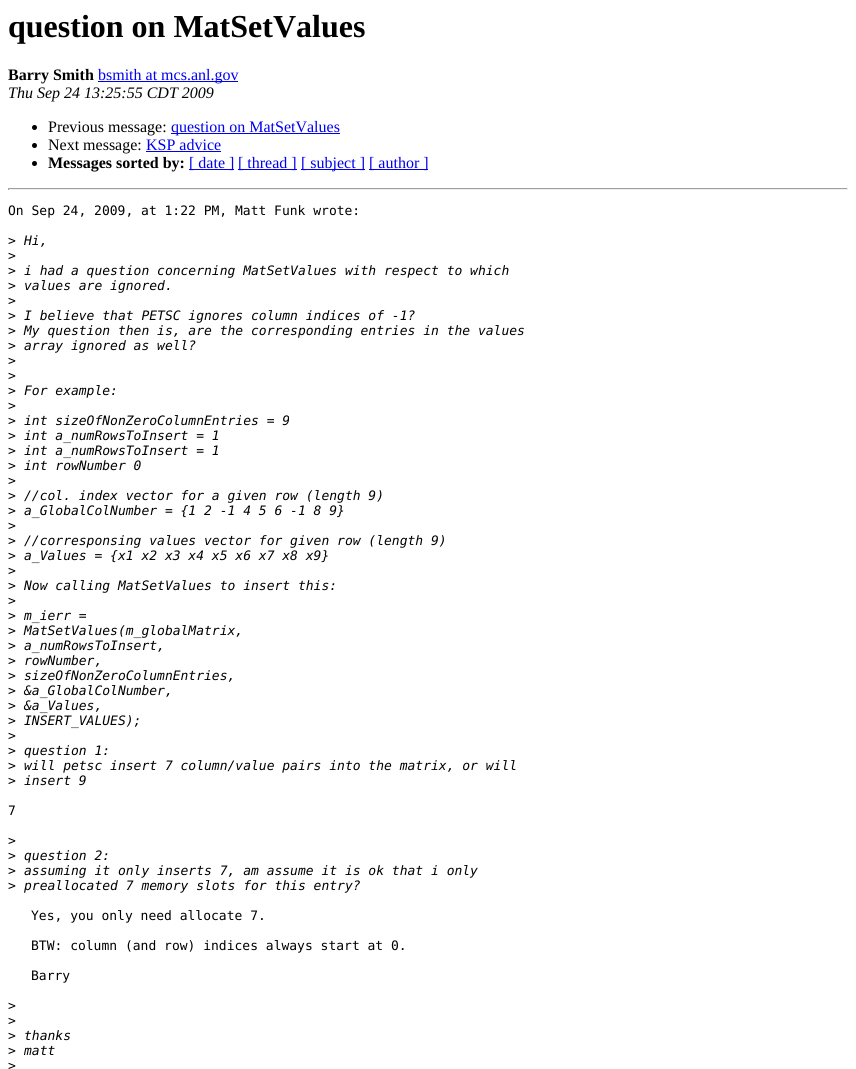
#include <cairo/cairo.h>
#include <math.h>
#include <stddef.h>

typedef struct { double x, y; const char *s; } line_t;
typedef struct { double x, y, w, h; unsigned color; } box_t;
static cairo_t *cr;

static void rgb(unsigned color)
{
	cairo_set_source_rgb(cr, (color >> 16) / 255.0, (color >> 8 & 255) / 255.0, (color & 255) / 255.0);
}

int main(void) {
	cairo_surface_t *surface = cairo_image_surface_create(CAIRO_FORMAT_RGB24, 856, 1069);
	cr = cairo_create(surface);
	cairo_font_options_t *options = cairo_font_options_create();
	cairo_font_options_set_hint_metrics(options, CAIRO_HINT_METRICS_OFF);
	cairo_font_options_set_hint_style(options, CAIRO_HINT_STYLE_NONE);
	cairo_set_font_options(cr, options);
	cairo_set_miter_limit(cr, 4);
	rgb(0xffffff);
	cairo_paint(cr);
	rgb(0x0000ee);
	cairo_rectangle(cr, 98, 81, 140, 1);
	cairo_fill(cr);
	rgb(0x000000);
	cairo_arc(cr, 34.5, 127.5, 2.5, 0, 2 * M_PI);
	cairo_fill(cr);
	rgb(0x0000ee);
	cairo_rectangle(cr, 171, 133, 169, 1);
	cairo_fill(cr);
	rgb(0x000000);
	cairo_arc(cr, 34.5, 145.5, 2.5, 0, 2 * M_PI);
	cairo_fill(cr);
	rgb(0x0000ee);
	cairo_rectangle(cr, 146, 151, 75, 1);
	cairo_fill(cr);
	rgb(0x000000);
	cairo_arc(cr, 34.5, 163.5, 2.5, 0, 2 * M_PI);
	cairo_fill(cr);
	{
		static const box_t items[] = {
			{189, 169, 45, 1, 0x0000ee},
			{238, 169, 59, 1, 0x0000ee},
			{301, 169, 64, 1, 0x0000ee},
			{369, 169, 59, 1, 0x0000ee},
			{8, 188, 840, 1, 0x9f9f9f},
			{847, 188, 1, 2, 0xeeeeee},
			{8, 189, 840, 1, 0xeeeeee},
			{8, 188, 1, 2, 0x9f9f9f},
		};
		for (size_t i = 0; i < sizeof items / sizeof *items; i++) {
			rgb(items[i].color);
			cairo_rectangle(cr, items[i].x, items[i].y, items[i].w, items[i].h);
			cairo_fill(cr);
		}
	}
	cairo_select_font_face(cr, "Liberation Serif", CAIRO_FONT_SLANT_NORMAL, CAIRO_FONT_WEIGHT_BOLD);
	cairo_set_font_size(cr, 32);
	rgb(0x000000);
	cairo_move_to(cr, 8, 37);
	cairo_show_text(cr, "question on MatSetValues");
	cairo_set_font_size(cr, 16);
	cairo_move_to(cr, 8, 80);
	cairo_show_text(cr, "Barry Smith");
	cairo_select_font_face(cr, "Liberation Serif", CAIRO_FONT_SLANT_NORMAL, CAIRO_FONT_WEIGHT_NORMAL);
	rgb(0x0000ee);
	cairo_move_to(cr, 98, 80);
	cairo_show_text(cr, "bsmith at mcs.anl.gov");
	cairo_select_font_face(cr, "Liberation Serif", CAIRO_FONT_SLANT_ITALIC, CAIRO_FONT_WEIGHT_NORMAL);
	rgb(0x000000);
	cairo_move_to(cr, 8, 98);
	cairo_show_text(cr, "Thu Sep 24 13:25:55 CDT 2009");
	cairo_select_font_face(cr, "Liberation Serif", CAIRO_FONT_SLANT_NORMAL, CAIRO_FONT_WEIGHT_NORMAL);
	cairo_move_to(cr, 48, 132);
	cairo_show_text(cr, "Previous message:");
	rgb(0x0000ee);
	cairo_move_to(cr, 171, 132);
	cairo_show_text(cr, "question on MatSetValues");
	rgb(0x000000);
	cairo_move_to(cr, 48, 150);
	cairo_show_text(cr, "Next message:");
	rgb(0x0000ee);
	cairo_move_to(cr, 146, 150);
	cairo_show_text(cr, "KSP advice");
	cairo_select_font_face(cr, "Liberation Serif", CAIRO_FONT_SLANT_NORMAL, CAIRO_FONT_WEIGHT_BOLD);
	rgb(0x000000);
	cairo_move_to(cr, 48, 168);
	cairo_show_text(cr, "Messages sorted by:");
	cairo_select_font_face(cr, "Liberation Serif", CAIRO_FONT_SLANT_NORMAL, CAIRO_FONT_WEIGHT_NORMAL);
	rgb(0x0000ee);
	{
		static const line_t items[] = {
			{189, 168, "[ date ]"},
			{238, 168, "[ thread ]"},
			{301, 168, "[ subject ]"},
			{369, 168, "[ author ]"},
		};
		for (size_t i = 0; i < sizeof items / sizeof *items; i++) {
			cairo_move_to(cr, items[i].x, items[i].y);
			cairo_show_text(cr, items[i].s);
		}
	}
	cairo_select_font_face(cr, "DejaVu Sans Mono", CAIRO_FONT_SLANT_NORMAL, CAIRO_FONT_WEIGHT_NORMAL);
	cairo_set_font_size(cr, 13);
	rgb(0x000000);
	cairo_move_to(cr, 8, 215);
	cairo_show_text(cr, "On Sep 24, 2009, at 1:22 PM, Matt Funk wrote:");
	cairo_move_to(cr, 8, 245);
	cairo_show_text(cr, ">");
	cairo_select_font_face(cr, "DejaVu Sans Mono", CAIRO_FONT_SLANT_ITALIC, CAIRO_FONT_WEIGHT_NORMAL);
	cairo_move_to(cr, 24, 245);
	cairo_show_text(cr, "Hi,");
	cairo_select_font_face(cr, "DejaVu Sans Mono", CAIRO_FONT_SLANT_NORMAL, CAIRO_FONT_WEIGHT_NORMAL);
	cairo_move_to(cr, 8, 260);
	cairo_show_text(cr, ">");
	cairo_move_to(cr, 8, 275);
	cairo_show_text(cr, ">");
	cairo_select_font_face(cr, "DejaVu Sans Mono", CAIRO_FONT_SLANT_ITALIC, CAIRO_FONT_WEIGHT_NORMAL);
	cairo_move_to(cr, 24, 275);
	cairo_show_text(cr, "i had a question concerning MatSetValues with respect to which");
	cairo_select_font_face(cr, "DejaVu Sans Mono", CAIRO_FONT_SLANT_NORMAL, CAIRO_FONT_WEIGHT_NORMAL);
	cairo_move_to(cr, 8, 290);
	cairo_show_text(cr, ">");
	cairo_select_font_face(cr, "DejaVu Sans Mono", CAIRO_FONT_SLANT_ITALIC, CAIRO_FONT_WEIGHT_NORMAL);
	cairo_move_to(cr, 24, 290);
	cairo_show_text(cr, "values are ignored.");
	cairo_select_font_face(cr, "DejaVu Sans Mono", CAIRO_FONT_SLANT_NORMAL, CAIRO_FONT_WEIGHT_NORMAL);
	cairo_move_to(cr, 8, 305);
	cairo_show_text(cr, ">");
	cairo_move_to(cr, 8, 320);
	cairo_show_text(cr, ">");
	cairo_select_font_face(cr, "DejaVu Sans Mono", CAIRO_FONT_SLANT_ITALIC, CAIRO_FONT_WEIGHT_NORMAL);
	cairo_move_to(cr, 24, 320);
	cairo_show_text(cr, "I believe that PETSC ignores column indices of -1?");
	cairo_select_font_face(cr, "DejaVu Sans Mono", CAIRO_FONT_SLANT_NORMAL, CAIRO_FONT_WEIGHT_NORMAL);
	cairo_move_to(cr, 8, 335);
	cairo_show_text(cr, ">");
	cairo_select_font_face(cr, "DejaVu Sans Mono", CAIRO_FONT_SLANT_ITALIC, CAIRO_FONT_WEIGHT_NORMAL);
	cairo_move_to(cr, 24, 335);
	cairo_show_text(cr, "My question then is, are the corresponding entries in the values");
	cairo_select_font_face(cr, "DejaVu Sans Mono", CAIRO_FONT_SLANT_NORMAL, CAIRO_FONT_WEIGHT_NORMAL);
	cairo_move_to(cr, 8, 350);
	cairo_show_text(cr, ">");
	cairo_select_font_face(cr, "DejaVu Sans Mono", CAIRO_FONT_SLANT_ITALIC, CAIRO_FONT_WEIGHT_NORMAL);
	cairo_move_to(cr, 24, 350);
	cairo_show_text(cr, "array ignored as well?");
	cairo_select_font_face(cr, "DejaVu Sans Mono", CAIRO_FONT_SLANT_NORMAL, CAIRO_FONT_WEIGHT_NORMAL);
	{
		static const line_t items[] = {
			{8, 365, ">"},
			{8, 380, ">"},
			{8, 395, ">"},
		};
		for (size_t i = 0; i < sizeof items / sizeof *items; i++) {
			cairo_move_to(cr, items[i].x, items[i].y);
			cairo_show_text(cr, items[i].s);
		}
	}
	cairo_select_font_face(cr, "DejaVu Sans Mono", CAIRO_FONT_SLANT_ITALIC, CAIRO_FONT_WEIGHT_NORMAL);
	cairo_move_to(cr, 24, 395);
	cairo_show_text(cr, "For example:");
	cairo_select_font_face(cr, "DejaVu Sans Mono", CAIRO_FONT_SLANT_NORMAL, CAIRO_FONT_WEIGHT_NORMAL);
	cairo_move_to(cr, 8, 410);
	cairo_show_text(cr, ">");
	cairo_move_to(cr, 8, 425);
	cairo_show_text(cr, ">");
	cairo_select_font_face(cr, "DejaVu Sans Mono", CAIRO_FONT_SLANT_ITALIC, CAIRO_FONT_WEIGHT_NORMAL);
	cairo_move_to(cr, 24, 425);
	cairo_show_text(cr, "int sizeOfNonZeroColumnEntries = 9");
	cairo_select_font_face(cr, "DejaVu Sans Mono", CAIRO_FONT_SLANT_NORMAL, CAIRO_FONT_WEIGHT_NORMAL);
	cairo_move_to(cr, 8, 440);
	cairo_show_text(cr, ">");
	cairo_select_font_face(cr, "DejaVu Sans Mono", CAIRO_FONT_SLANT_ITALIC, CAIRO_FONT_WEIGHT_NORMAL);
	cairo_move_to(cr, 24, 440);
	cairo_show_text(cr, "int a_numRowsToInsert = 1");
	cairo_select_font_face(cr, "DejaVu Sans Mono", CAIRO_FONT_SLANT_NORMAL, CAIRO_FONT_WEIGHT_NORMAL);
	cairo_move_to(cr, 8, 455);
	cairo_show_text(cr, ">");
	cairo_select_font_face(cr, "DejaVu Sans Mono", CAIRO_FONT_SLANT_ITALIC, CAIRO_FONT_WEIGHT_NORMAL);
	cairo_move_to(cr, 24, 455);
	cairo_show_text(cr, "int a_numRowsToInsert = 1");
	cairo_select_font_face(cr, "DejaVu Sans Mono", CAIRO_FONT_SLANT_NORMAL, CAIRO_FONT_WEIGHT_NORMAL);
	cairo_move_to(cr, 8, 470);
	cairo_show_text(cr, ">");
	cairo_select_font_face(cr, "DejaVu Sans Mono", CAIRO_FONT_SLANT_ITALIC, CAIRO_FONT_WEIGHT_NORMAL);
	cairo_move_to(cr, 24, 470);
	cairo_show_text(cr, "int rowNumber 0");
	cairo_select_font_face(cr, "DejaVu Sans Mono", CAIRO_FONT_SLANT_NORMAL, CAIRO_FONT_WEIGHT_NORMAL);
	cairo_move_to(cr, 8, 485);
	cairo_show_text(cr, ">");
	cairo_move_to(cr, 8, 500);
	cairo_show_text(cr, ">");
	cairo_select_font_face(cr, "DejaVu Sans Mono", CAIRO_FONT_SLANT_ITALIC, CAIRO_FONT_WEIGHT_NORMAL);
	cairo_move_to(cr, 24, 500);
	cairo_show_text(cr, "//col. index vector for a given row (length 9)");
	cairo_select_font_face(cr, "DejaVu Sans Mono", CAIRO_FONT_SLANT_NORMAL, CAIRO_FONT_WEIGHT_NORMAL);
	cairo_move_to(cr, 8, 515);
	cairo_show_text(cr, ">");
	cairo_select_font_face(cr, "DejaVu Sans Mono", CAIRO_FONT_SLANT_ITALIC, CAIRO_FONT_WEIGHT_NORMAL);
	cairo_move_to(cr, 24, 515);
	cairo_show_text(cr, "a_GlobalColNumber = {1 2 -1 4 5 6 -1 8 9}");
	cairo_select_font_face(cr, "DejaVu Sans Mono", CAIRO_FONT_SLANT_NORMAL, CAIRO_FONT_WEIGHT_NORMAL);
	cairo_move_to(cr, 8, 530);
	cairo_show_text(cr, ">");
	cairo_move_to(cr, 8, 545);
	cairo_show_text(cr, ">");
	cairo_select_font_face(cr, "DejaVu Sans Mono", CAIRO_FONT_SLANT_ITALIC, CAIRO_FONT_WEIGHT_NORMAL);
	cairo_move_to(cr, 24, 545);
	cairo_show_text(cr, "//corresponsing values vector for given row (length 9)");
	cairo_select_font_face(cr, "DejaVu Sans Mono", CAIRO_FONT_SLANT_NORMAL, CAIRO_FONT_WEIGHT_NORMAL);
	cairo_move_to(cr, 8, 560);
	cairo_show_text(cr, ">");
	cairo_select_font_face(cr, "DejaVu Sans Mono", CAIRO_FONT_SLANT_ITALIC, CAIRO_FONT_WEIGHT_NORMAL);
	cairo_move_to(cr, 24, 560);
	cairo_show_text(cr, "a_Values = {x1 x2 x3 x4 x5 x6 x7 x8 x9}");
	cairo_select_font_face(cr, "DejaVu Sans Mono", CAIRO_FONT_SLANT_NORMAL, CAIRO_FONT_WEIGHT_NORMAL);
	cairo_move_to(cr, 8, 575);
	cairo_show_text(cr, ">");
	cairo_move_to(cr, 8, 590);
	cairo_show_text(cr, ">");
	cairo_select_font_face(cr, "DejaVu Sans Mono", CAIRO_FONT_SLANT_ITALIC, CAIRO_FONT_WEIGHT_NORMAL);
	cairo_move_to(cr, 24, 590);
	cairo_show_text(cr, "Now calling MatSetValues to insert this:");
	cairo_select_font_face(cr, "DejaVu Sans Mono", CAIRO_FONT_SLANT_NORMAL, CAIRO_FONT_WEIGHT_NORMAL);
	cairo_move_to(cr, 8, 605);
	cairo_show_text(cr, ">");
	cairo_move_to(cr, 8, 620);
	cairo_show_text(cr, ">");
	cairo_select_font_face(cr, "DejaVu Sans Mono", CAIRO_FONT_SLANT_ITALIC, CAIRO_FONT_WEIGHT_NORMAL);
	cairo_move_to(cr, 24, 620);
	cairo_show_text(cr, "m_ierr =");
	cairo_select_font_face(cr, "DejaVu Sans Mono", CAIRO_FONT_SLANT_NORMAL, CAIRO_FONT_WEIGHT_NORMAL);
	cairo_move_to(cr, 8, 635);
	cairo_show_text(cr, ">");
	cairo_select_font_face(cr, "DejaVu Sans Mono", CAIRO_FONT_SLANT_ITALIC, CAIRO_FONT_WEIGHT_NORMAL);
	cairo_move_to(cr, 24, 635);
	cairo_show_text(cr, "MatSetValues(m_globalMatrix,");
	cairo_select_font_face(cr, "DejaVu Sans Mono", CAIRO_FONT_SLANT_NORMAL, CAIRO_FONT_WEIGHT_NORMAL);
	cairo_move_to(cr, 8, 650);
	cairo_show_text(cr, ">");
	cairo_select_font_face(cr, "DejaVu Sans Mono", CAIRO_FONT_SLANT_ITALIC, CAIRO_FONT_WEIGHT_NORMAL);
	cairo_move_to(cr, 24, 650);
	cairo_show_text(cr, "a_numRowsToInsert,");
	cairo_select_font_face(cr, "DejaVu Sans Mono", CAIRO_FONT_SLANT_NORMAL, CAIRO_FONT_WEIGHT_NORMAL);
	cairo_move_to(cr, 8, 665);
	cairo_show_text(cr, ">");
	cairo_select_font_face(cr, "DejaVu Sans Mono", CAIRO_FONT_SLANT_ITALIC, CAIRO_FONT_WEIGHT_NORMAL);
	cairo_move_to(cr, 24, 665);
	cairo_show_text(cr, "rowNumber,");
	cairo_select_font_face(cr, "DejaVu Sans Mono", CAIRO_FONT_SLANT_NORMAL, CAIRO_FONT_WEIGHT_NORMAL);
	cairo_move_to(cr, 8, 680);
	cairo_show_text(cr, ">");
	cairo_select_font_face(cr, "DejaVu Sans Mono", CAIRO_FONT_SLANT_ITALIC, CAIRO_FONT_WEIGHT_NORMAL);
	cairo_move_to(cr, 24, 680);
	cairo_show_text(cr, "sizeOfNonZeroColumnEntries,");
	cairo_select_font_face(cr, "DejaVu Sans Mono", CAIRO_FONT_SLANT_NORMAL, CAIRO_FONT_WEIGHT_NORMAL);
	cairo_move_to(cr, 8, 695);
	cairo_show_text(cr, ">");
	cairo_select_font_face(cr, "DejaVu Sans Mono", CAIRO_FONT_SLANT_ITALIC, CAIRO_FONT_WEIGHT_NORMAL);
	cairo_move_to(cr, 24, 695);
	cairo_show_text(cr, "&a_GlobalColNumber,");
	cairo_select_font_face(cr, "DejaVu Sans Mono", CAIRO_FONT_SLANT_NORMAL, CAIRO_FONT_WEIGHT_NORMAL);
	cairo_move_to(cr, 8, 710);
	cairo_show_text(cr, ">");
	cairo_select_font_face(cr, "DejaVu Sans Mono", CAIRO_FONT_SLANT_ITALIC, CAIRO_FONT_WEIGHT_NORMAL);
	cairo_move_to(cr, 24, 710);
	cairo_show_text(cr, "&a_Values,");
	cairo_select_font_face(cr, "DejaVu Sans Mono", CAIRO_FONT_SLANT_NORMAL, CAIRO_FONT_WEIGHT_NORMAL);
	cairo_move_to(cr, 8, 725);
	cairo_show_text(cr, ">");
	cairo_select_font_face(cr, "DejaVu Sans Mono", CAIRO_FONT_SLANT_ITALIC, CAIRO_FONT_WEIGHT_NORMAL);
	cairo_move_to(cr, 24, 725);
	cairo_show_text(cr, "INSERT_VALUES);");
	cairo_select_font_face(cr, "DejaVu Sans Mono", CAIRO_FONT_SLANT_NORMAL, CAIRO_FONT_WEIGHT_NORMAL);
	cairo_move_to(cr, 8, 740);
	cairo_show_text(cr, ">");
	cairo_move_to(cr, 8, 755);
	cairo_show_text(cr, ">");
	cairo_select_font_face(cr, "DejaVu Sans Mono", CAIRO_FONT_SLANT_ITALIC, CAIRO_FONT_WEIGHT_NORMAL);
	cairo_move_to(cr, 24, 755);
	cairo_show_text(cr, "question 1:");
	cairo_select_font_face(cr, "DejaVu Sans Mono", CAIRO_FONT_SLANT_NORMAL, CAIRO_FONT_WEIGHT_NORMAL);
	cairo_move_to(cr, 8, 770);
	cairo_show_text(cr, ">");
	cairo_select_font_face(cr, "DejaVu Sans Mono", CAIRO_FONT_SLANT_ITALIC, CAIRO_FONT_WEIGHT_NORMAL);
	cairo_move_to(cr, 24, 770);
	cairo_show_text(cr, "will petsc insert 7 column/value pairs into the matrix, or will");
	cairo_select_font_face(cr, "DejaVu Sans Mono", CAIRO_FONT_SLANT_NORMAL, CAIRO_FONT_WEIGHT_NORMAL);
	cairo_move_to(cr, 8, 785);
	cairo_show_text(cr, ">");
	cairo_select_font_face(cr, "DejaVu Sans Mono", CAIRO_FONT_SLANT_ITALIC, CAIRO_FONT_WEIGHT_NORMAL);
	cairo_move_to(cr, 24, 785);
	cairo_show_text(cr, "insert 9");
	cairo_select_font_face(cr, "DejaVu Sans Mono", CAIRO_FONT_SLANT_NORMAL, CAIRO_FONT_WEIGHT_NORMAL);
	{
		static const line_t items[] = {
			{8, 815, "7"},
			{8, 845, ">"},
			{8, 860, ">"},
		};
		for (size_t i = 0; i < sizeof items / sizeof *items; i++) {
			cairo_move_to(cr, items[i].x, items[i].y);
			cairo_show_text(cr, items[i].s);
		}
	}
	cairo_select_font_face(cr, "DejaVu Sans Mono", CAIRO_FONT_SLANT_ITALIC, CAIRO_FONT_WEIGHT_NORMAL);
	cairo_move_to(cr, 24, 860);
	cairo_show_text(cr, "question 2:");
	cairo_select_font_face(cr, "DejaVu Sans Mono", CAIRO_FONT_SLANT_NORMAL, CAIRO_FONT_WEIGHT_NORMAL);
	cairo_move_to(cr, 8, 875);
	cairo_show_text(cr, ">");
	cairo_select_font_face(cr, "DejaVu Sans Mono", CAIRO_FONT_SLANT_ITALIC, CAIRO_FONT_WEIGHT_NORMAL);
	cairo_move_to(cr, 24, 875);
	cairo_show_text(cr, "assuming it only inserts 7, am assume it is ok that i only");
	cairo_select_font_face(cr, "DejaVu Sans Mono", CAIRO_FONT_SLANT_NORMAL, CAIRO_FONT_WEIGHT_NORMAL);
	cairo_move_to(cr, 8, 890);
	cairo_show_text(cr, ">");
	cairo_select_font_face(cr, "DejaVu Sans Mono", CAIRO_FONT_SLANT_ITALIC, CAIRO_FONT_WEIGHT_NORMAL);
	cairo_move_to(cr, 24, 890);
	cairo_show_text(cr, "preallocated 7 memory slots for this entry?");
	cairo_select_font_face(cr, "DejaVu Sans Mono", CAIRO_FONT_SLANT_NORMAL, CAIRO_FONT_WEIGHT_NORMAL);
	{
		static const line_t items[] = {
			{31, 920, "Yes, you only need allocate 7."},
			{31, 950, "BTW: column (and row) indices always start at 0."},
			{31, 980, "Barry"},
			{8, 1010, ">"},
			{8, 1025, ">"},
			{8, 1040, ">"},
		};
		for (size_t i = 0; i < sizeof items / sizeof *items; i++) {
			cairo_move_to(cr, items[i].x, items[i].y);
			cairo_show_text(cr, items[i].s);
		}
	}
	cairo_select_font_face(cr, "DejaVu Sans Mono", CAIRO_FONT_SLANT_ITALIC, CAIRO_FONT_WEIGHT_NORMAL);
	cairo_move_to(cr, 24, 1040);
	cairo_show_text(cr, "thanks");
	cairo_select_font_face(cr, "DejaVu Sans Mono", CAIRO_FONT_SLANT_NORMAL, CAIRO_FONT_WEIGHT_NORMAL);
	cairo_move_to(cr, 8, 1055);
	cairo_show_text(cr, ">");
	cairo_select_font_face(cr, "DejaVu Sans Mono", CAIRO_FONT_SLANT_ITALIC, CAIRO_FONT_WEIGHT_NORMAL);
	cairo_move_to(cr, 24, 1055);
	cairo_show_text(cr, "matt");
	cairo_select_font_face(cr, "DejaVu Sans Mono", CAIRO_FONT_SLANT_NORMAL, CAIRO_FONT_WEIGHT_NORMAL);
	cairo_move_to(cr, 8, 1070);
	cairo_show_text(cr, ">");
	cairo_surface_write_to_png(surface, "page.png");
	cairo_font_options_destroy(options);
	cairo_destroy(cr);
	cairo_surface_destroy(surface);
	return 0;
}
